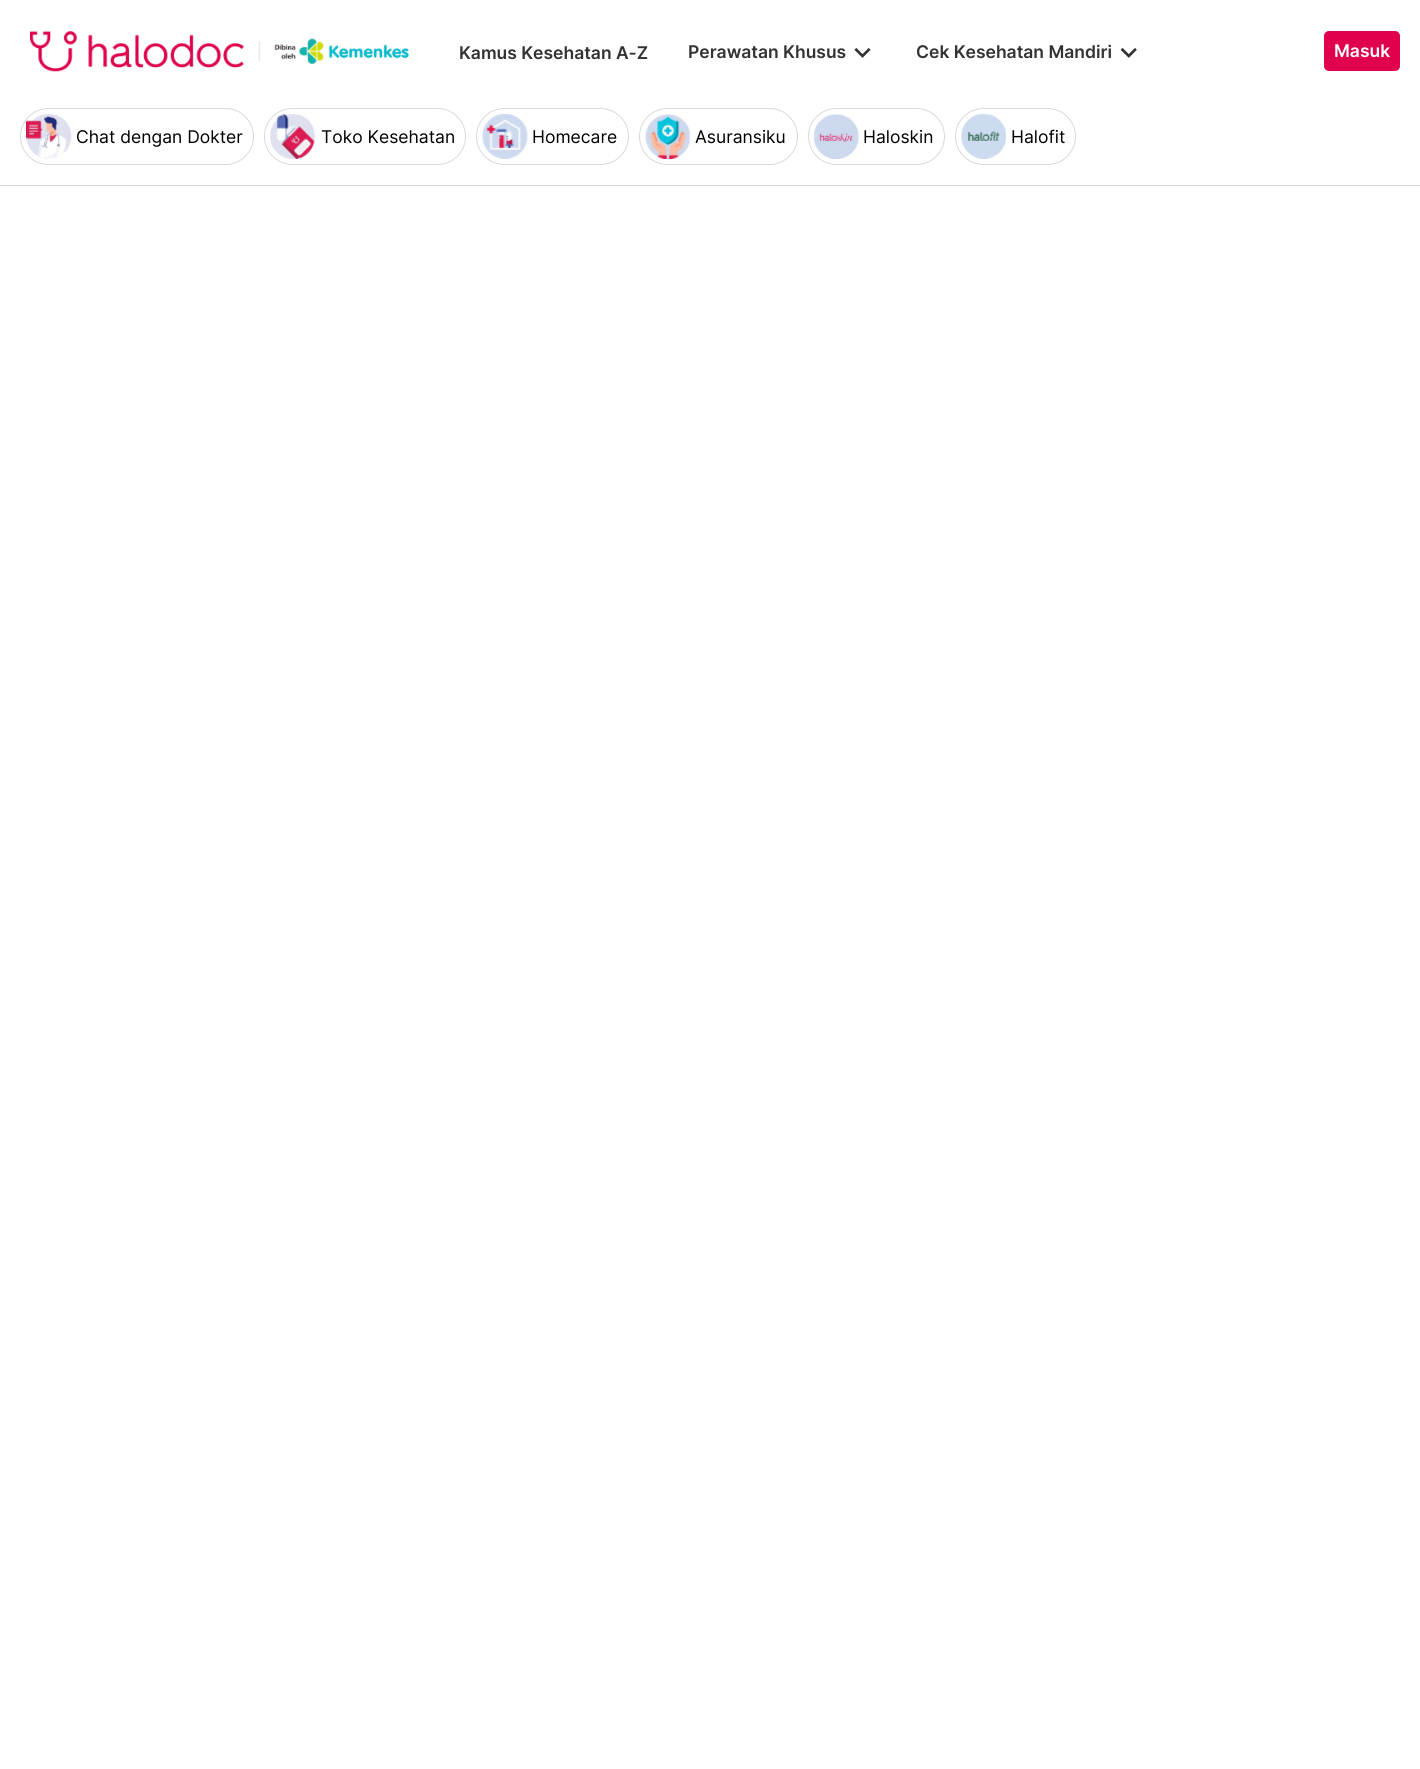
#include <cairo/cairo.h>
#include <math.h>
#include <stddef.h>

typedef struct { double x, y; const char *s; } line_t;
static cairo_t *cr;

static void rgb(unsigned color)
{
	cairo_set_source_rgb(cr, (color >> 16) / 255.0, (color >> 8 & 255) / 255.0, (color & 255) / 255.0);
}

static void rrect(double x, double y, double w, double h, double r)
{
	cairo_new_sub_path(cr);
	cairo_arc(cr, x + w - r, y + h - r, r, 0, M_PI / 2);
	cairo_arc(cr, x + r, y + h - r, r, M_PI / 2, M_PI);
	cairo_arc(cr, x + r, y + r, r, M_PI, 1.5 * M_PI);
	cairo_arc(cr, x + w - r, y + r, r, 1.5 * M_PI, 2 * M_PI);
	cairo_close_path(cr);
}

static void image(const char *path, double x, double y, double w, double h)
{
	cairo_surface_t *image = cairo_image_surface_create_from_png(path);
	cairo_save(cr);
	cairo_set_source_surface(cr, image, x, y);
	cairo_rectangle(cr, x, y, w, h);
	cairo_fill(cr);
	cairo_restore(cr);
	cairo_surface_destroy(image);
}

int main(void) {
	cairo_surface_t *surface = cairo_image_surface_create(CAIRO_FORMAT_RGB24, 1420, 1769);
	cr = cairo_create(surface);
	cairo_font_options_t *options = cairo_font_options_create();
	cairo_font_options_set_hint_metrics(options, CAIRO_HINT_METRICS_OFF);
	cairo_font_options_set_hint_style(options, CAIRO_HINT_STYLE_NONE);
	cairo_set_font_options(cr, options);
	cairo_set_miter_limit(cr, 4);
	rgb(0xffffff);
	cairo_paint(cr);
	rgb(0xd9d9d9);
	cairo_rectangle(cr, 0, 185, 1420, 1);
	cairo_fill(cr);
	image("img/1.png", 30, 31, 379, 41);
	image("img/2.png", 854, 48, 17, 10);
	image("img/3.png", 1120, 48, 17, 10);
	rgb(0xe0004d);
	rrect(1324, 31, 76, 40, 5);
	cairo_fill(cr);
	rrect(20.5, 108.5, 233, 56, 28);
	rgb(0xd9d9d9);
	cairo_set_line_width(cr, 1);
	cairo_stroke(cr);
	image("img/4.png", 26, 114, 46, 45);
	rrect(264.5, 108.5, 201, 56, 28);
	cairo_stroke(cr);
	image("img/5.png", 270, 114, 46, 45);
	rrect(476.5, 108.5, 152, 56, 28);
	cairo_stroke(cr);
	image("img/6.png", 482, 114, 46, 45);
	rrect(639.5, 108.5, 158, 56, 28);
	cairo_stroke(cr);
	image("img/7.png", 645, 114, 46, 45);
	rrect(808.5, 108.5, 136, 56, 28);
	cairo_stroke(cr);
	image("img/8.png", 813, 114, 47, 45);
	rrect(955.5, 108.5, 120, 56, 28);
	cairo_stroke(cr);
	image("img/9.png", 961, 114, 45, 45);
	cairo_select_font_face(cr, "Inter SemiBold", CAIRO_FONT_SLANT_NORMAL, CAIRO_FONT_WEIGHT_NORMAL);
	cairo_set_font_size(cr, 17.5);
	rgb(0x333333);
	{
		static const line_t items[] = {
			{459, 59, "Kamus Kesehatan A-Z"},
			{688, 58, "Perawatan Khusus"},
			{916, 58, "Cek Kesehatan Mandiri"},
		};
		for (size_t i = 0; i < sizeof items / sizeof *items; i++) {
			cairo_move_to(cr, items[i].x, items[i].y);
			cairo_show_text(cr, items[i].s);
		}
	}
	rgb(0xffffff);
	cairo_move_to(cr, 1334, 57);
	cairo_show_text(cr, "Masuk");
	cairo_select_font_face(cr, "Inter", CAIRO_FONT_SLANT_NORMAL, CAIRO_FONT_WEIGHT_NORMAL);
	rgb(0x000000);
	{
		static const line_t items[] = {
			{76, 143, "Chat dengan Dokter"},
			{321, 143, "Toko Kesehatan"},
			{532, 143, "Homecare"},
			{695, 143, "Asuransiku"},
			{863, 143, "Haloskin"},
			{1011, 143, "Halofit"},
		};
		for (size_t i = 0; i < sizeof items / sizeof *items; i++) {
			cairo_move_to(cr, items[i].x, items[i].y);
			cairo_show_text(cr, items[i].s);
		}
	}
	cairo_surface_write_to_png(surface, "page.png");
	cairo_font_options_destroy(options);
	cairo_destroy(cr);
	cairo_surface_destroy(surface);
	return 0;
}
